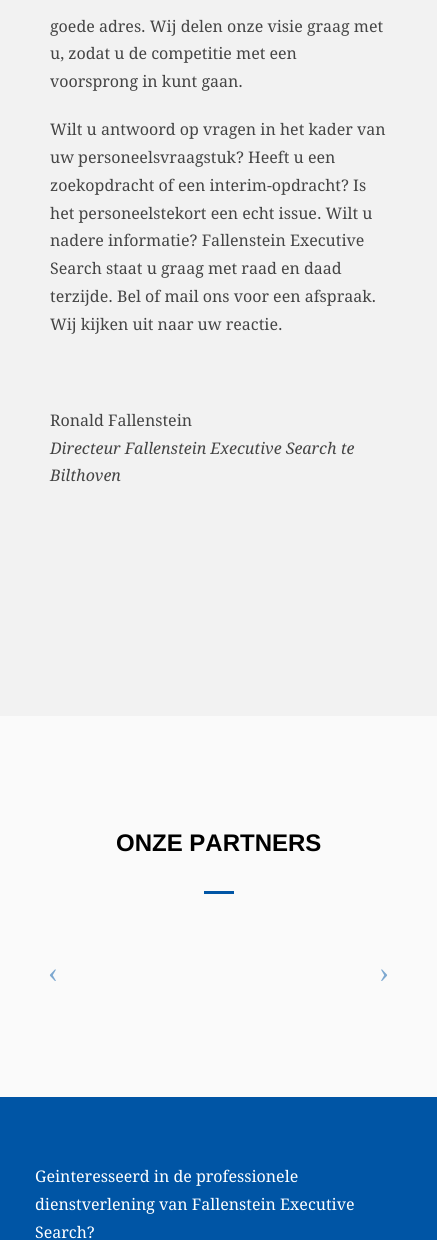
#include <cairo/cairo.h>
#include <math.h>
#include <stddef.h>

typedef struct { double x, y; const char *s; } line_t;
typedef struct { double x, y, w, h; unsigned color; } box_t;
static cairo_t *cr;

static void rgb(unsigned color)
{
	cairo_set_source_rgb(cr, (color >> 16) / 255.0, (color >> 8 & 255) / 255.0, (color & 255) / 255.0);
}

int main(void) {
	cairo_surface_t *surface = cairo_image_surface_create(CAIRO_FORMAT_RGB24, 437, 1240);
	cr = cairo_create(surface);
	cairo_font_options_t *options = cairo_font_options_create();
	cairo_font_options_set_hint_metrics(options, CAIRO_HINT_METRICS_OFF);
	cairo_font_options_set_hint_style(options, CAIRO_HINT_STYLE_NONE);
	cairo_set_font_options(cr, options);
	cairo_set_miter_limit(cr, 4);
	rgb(0xf2f2f2);
	cairo_paint(cr);
	{
		static const box_t items[] = {
			{0, 716, 437, 381, 0xfafafa},
			{204, 891, 30, 3, 0x0055a5},
			{0, 1097, 437, 143, 0x0055a5},
		};
		for (size_t i = 0; i < sizeof items / sizeof *items; i++) {
			rgb(items[i].color);
			cairo_rectangle(cr, items[i].x, items[i].y, items[i].w, items[i].h);
			cairo_fill(cr);
		}
	}
	cairo_select_font_face(cr, "Droid Serif", CAIRO_FONT_SLANT_NORMAL, CAIRO_FONT_WEIGHT_NORMAL);
	cairo_set_font_size(cr, 16);
	rgb(0x444444);
	{
		static const line_t items[] = {
			{50, 32, "goede adres. Wij delen onze visie graag met"},
			{50, 59, "u, zodat u de competitie met een"},
			{50, 87, "voorsprong in kunt gaan."},
			{50, 135, "Wilt u antwoord op vragen in het kader van"},
			{50, 163, "uw personeelsvraagstuk? Heeft u een"},
			{50, 191, "zoekopdracht of een interim-opdracht? Is"},
			{50, 219, "het personeelstekort een echt issue. Wilt u"},
			{50, 246, "nadere informatie? Fallenstein Executive"},
			{50, 274, "Search staat u graag met raad en daad"},
			{50, 302, "terzijde. Bel of mail ons voor een afspraak."},
			{50, 330, "Wij kijken uit naar uw reactie."},
			{50, 426, "Ronald Fallenstein"},
		};
		for (size_t i = 0; i < sizeof items / sizeof *items; i++) {
			cairo_move_to(cr, items[i].x, items[i].y);
			cairo_show_text(cr, items[i].s);
		}
	}
	cairo_select_font_face(cr, "Droid Serif", CAIRO_FONT_SLANT_ITALIC, CAIRO_FONT_WEIGHT_NORMAL);
	cairo_move_to(cr, 50, 454);
	cairo_show_text(cr, "Directeur Fallenstein Executive Search te");
	cairo_move_to(cr, 50, 481);
	cairo_show_text(cr, "Bilthoven");
	cairo_select_font_face(cr, "Liberation Sans", CAIRO_FONT_SLANT_NORMAL, CAIRO_FONT_WEIGHT_BOLD);
	cairo_set_font_size(cr, 24);
	rgb(0x000000);
	cairo_move_to(cr, 116, 851);
	cairo_show_text(cr, "ONZE PARTNERS");
	cairo_select_font_face(cr, "Liberation Serif", CAIRO_FONT_SLANT_NORMAL, CAIRO_FONT_WEIGHT_NORMAL);
	cairo_set_font_size(cr, 30);
	rgb(0x7da8d0);
	cairo_move_to(cr, 48, 982);
	cairo_show_text(cr, "‹");
	cairo_move_to(cr, 379, 982);
	cairo_show_text(cr, "›");
	cairo_select_font_face(cr, "Droid Serif", CAIRO_FONT_SLANT_NORMAL, CAIRO_FONT_WEIGHT_NORMAL);
	cairo_set_font_size(cr, 16);
	rgb(0xffffff);
	{
		static const line_t items[] = {
			{35, 1182, "Geinteresseerd in de professionele"},
			{35, 1210, "dienstverlening van Fallenstein Executive"},
			{35, 1238, "Search?"},
		};
		for (size_t i = 0; i < sizeof items / sizeof *items; i++) {
			cairo_move_to(cr, items[i].x, items[i].y);
			cairo_show_text(cr, items[i].s);
		}
	}
	cairo_surface_write_to_png(surface, "page.png");
	cairo_font_options_destroy(options);
	cairo_destroy(cr);
	cairo_surface_destroy(surface);
	return 0;
}
